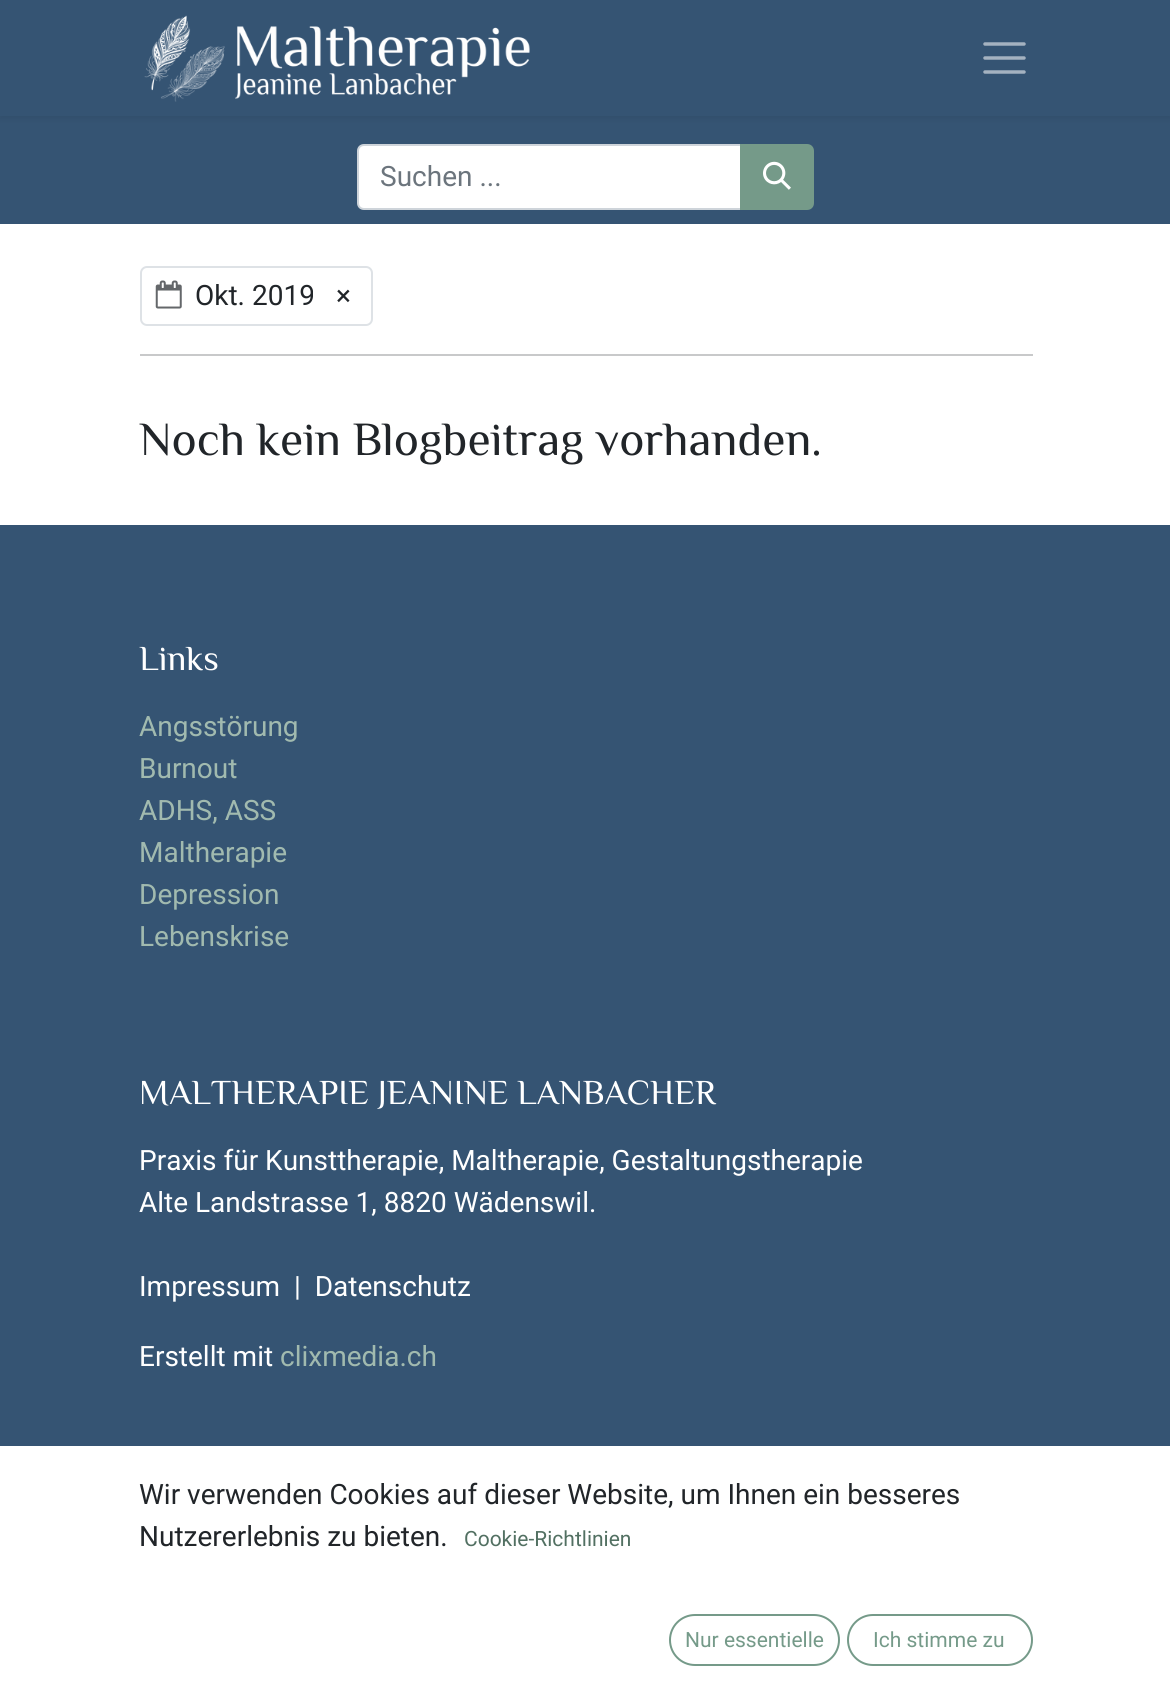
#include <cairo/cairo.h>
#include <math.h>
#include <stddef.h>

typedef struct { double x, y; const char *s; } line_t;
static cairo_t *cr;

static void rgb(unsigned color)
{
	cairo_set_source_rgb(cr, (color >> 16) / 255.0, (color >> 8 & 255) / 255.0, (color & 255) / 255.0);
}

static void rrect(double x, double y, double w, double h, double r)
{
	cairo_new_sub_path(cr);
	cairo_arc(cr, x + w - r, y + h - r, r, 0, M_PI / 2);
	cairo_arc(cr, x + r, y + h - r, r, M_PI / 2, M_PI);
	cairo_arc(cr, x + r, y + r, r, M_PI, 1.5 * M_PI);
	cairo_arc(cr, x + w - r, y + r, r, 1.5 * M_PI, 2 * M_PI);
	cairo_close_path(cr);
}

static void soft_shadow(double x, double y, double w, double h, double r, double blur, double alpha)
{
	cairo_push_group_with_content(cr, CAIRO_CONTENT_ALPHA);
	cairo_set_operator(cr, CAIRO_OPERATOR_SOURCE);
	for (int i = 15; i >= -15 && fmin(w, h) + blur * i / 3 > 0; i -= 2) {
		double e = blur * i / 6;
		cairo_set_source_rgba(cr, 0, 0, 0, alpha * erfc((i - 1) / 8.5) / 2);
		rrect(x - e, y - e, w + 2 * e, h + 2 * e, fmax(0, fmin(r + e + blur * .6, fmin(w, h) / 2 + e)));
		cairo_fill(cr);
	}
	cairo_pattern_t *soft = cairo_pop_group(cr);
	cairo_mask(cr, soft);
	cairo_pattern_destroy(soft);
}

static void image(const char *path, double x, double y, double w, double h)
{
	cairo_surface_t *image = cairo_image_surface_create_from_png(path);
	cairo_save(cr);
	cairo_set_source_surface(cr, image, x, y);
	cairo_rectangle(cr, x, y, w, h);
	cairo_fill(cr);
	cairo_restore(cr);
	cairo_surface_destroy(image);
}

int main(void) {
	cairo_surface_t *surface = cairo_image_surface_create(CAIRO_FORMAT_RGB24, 1170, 1694);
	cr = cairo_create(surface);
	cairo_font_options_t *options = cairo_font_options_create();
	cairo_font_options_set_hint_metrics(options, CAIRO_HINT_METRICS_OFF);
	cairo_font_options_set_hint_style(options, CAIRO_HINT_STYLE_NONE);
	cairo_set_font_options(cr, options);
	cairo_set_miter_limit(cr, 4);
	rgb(0xffffff);
	cairo_paint(cr);
	rgb(0x355473);
	cairo_rectangle(cr, 0, 116, 1170, 108);
	cairo_fill(cr);
	rgb(0x000000);
	soft_shadow(0, 4, 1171, 115, 0, 3.5, 0.07);
	rgb(0x355473);
	cairo_rectangle(cr, 0, 0, 1170, 116);
	cairo_fill(cr);
	image("img/1.png", 144, 15, 386, 87);
	cairo_new_path(cr);
	cairo_move_to(cr, 985, 44);
	cairo_line_to(cr, 1024, 44);
	cairo_move_to(cr, 985, 58);
	cairo_line_to(cr, 1024, 58);
	cairo_move_to(cr, 985, 72);
	cairo_line_to(cr, 1024, 72);
	rgb(0xa4b2c0);
	cairo_set_line_width(cr, 3.5);
	cairo_set_line_cap(cr, CAIRO_LINE_CAP_ROUND);
	cairo_stroke(cr);
	rgb(0xffffff);
	cairo_new_path(cr);
	cairo_move_to(cr, 364, 145);
	cairo_line_to(cr, 741, 145);
	cairo_line_to(cr, 741, 209);
	cairo_line_to(cr, 364, 209);
	cairo_curve_to(cr, 360.5, 209, 358, 206.5, 358, 203);
	cairo_line_to(cr, 358, 151);
	cairo_curve_to(cr, 358, 147.5, 360.5, 145, 364, 145);
	cairo_close_path(cr);
	cairo_fill_preserve(cr);
	rgb(0xced4da);
	cairo_set_line_width(cr, 2);
	cairo_set_line_cap(cr, CAIRO_LINE_CAP_BUTT);
	cairo_stroke(cr);
	rgb(0x759a89);
	cairo_new_path(cr);
	cairo_move_to(cr, 741, 145);
	cairo_line_to(cr, 807, 145);
	cairo_curve_to(cr, 810.5, 145, 813, 147.5, 813, 151);
	cairo_line_to(cr, 813, 203);
	cairo_curve_to(cr, 813, 206.5, 810.5, 209, 807, 209);
	cairo_line_to(cr, 741, 209);
	cairo_close_path(cr);
	cairo_fill_preserve(cr);
	cairo_stroke(cr);
	image("img/2.png", 763, 161, 28, 29);
	rrect(141, 267, 231, 58, 6);
	rgb(0xdee2e6);
	cairo_stroke(cr);
	image("img/3.png", 155, 280, 27, 29);
	rgb(0xc8c9ca);
	cairo_rectangle(cr, 140, 354, 893, 2);
	cairo_fill(cr);
	rgb(0x355473);
	cairo_rectangle(cr, 0, 525, 1170, 921);
	cairo_fill(cr);
	rrect(670, 1615, 169, 50, 25);
	rgb(0x759a89);
	cairo_stroke(cr);
	rrect(848, 1615, 184, 50, 25);
	cairo_stroke(cr);
	cairo_select_font_face(cr, "Roboto", CAIRO_FONT_SLANT_NORMAL, CAIRO_FONT_WEIGHT_NORMAL);
	cairo_set_font_size(cr, 28);
	rgb(0x6c757d);
	cairo_move_to(cr, 380, 186);
	cairo_show_text(cr, "Suchen ...");
	rgb(0x212529);
	cairo_move_to(cr, 195, 305);
	cairo_show_text(cr, "Okt. 2019");
	cairo_move_to(cr, 336, 305);
	cairo_show_text(cr, "×");
	cairo_select_font_face(cr, "Philosopher", CAIRO_FONT_SLANT_NORMAL, CAIRO_FONT_WEIGHT_NORMAL);
	cairo_set_font_size(cr, 47.6);
	cairo_move_to(cr, 139, 455);
	cairo_show_text(cr, "Noch kein Blogbeitrag vorhanden.");
	cairo_set_font_size(cr, 35);
	rgb(0xffffff);
	cairo_move_to(cr, 139, 670);
	cairo_show_text(cr, "Links");
	cairo_select_font_face(cr, "Roboto", CAIRO_FONT_SLANT_NORMAL, CAIRO_FONT_WEIGHT_NORMAL);
	cairo_set_font_size(cr, 28);
	rgb(0xa1baaf);
	{
		static const line_t items[] = {
			{139, 736, "Angsstörung"},
			{139, 778, "Burnout"},
			{139, 820, "ADHS, ASS"},
			{139, 862, "Maltherapie"},
			{139, 904, "Depression"},
			{139, 946, "Lebenskrise"},
		};
		for (size_t i = 0; i < sizeof items / sizeof *items; i++) {
			cairo_move_to(cr, items[i].x, items[i].y);
			cairo_show_text(cr, items[i].s);
		}
	}
	cairo_select_font_face(cr, "Philosopher", CAIRO_FONT_SLANT_NORMAL, CAIRO_FONT_WEIGHT_NORMAL);
	cairo_set_font_size(cr, 35);
	rgb(0xffffff);
	cairo_move_to(cr, 139, 1104);
	cairo_show_text(cr, "MALTHERAPIE JEANINE LANBACHER");
	cairo_select_font_face(cr, "Roboto", CAIRO_FONT_SLANT_NORMAL, CAIRO_FONT_WEIGHT_NORMAL);
	cairo_set_font_size(cr, 28);
	{
		static const line_t items[] = {
			{139, 1170, "Praxis für Kunsttherapie, Maltherapie, Gestaltungstherapie"},
			{139, 1212, "Alte Landstrasse 1, 8820 Wädenswil."},
			{139, 1296, "Impressum  |  Datenschutz"},
			{139, 1366, "Erstellt mit"},
		};
		for (size_t i = 0; i < sizeof items / sizeof *items; i++) {
			cairo_move_to(cr, items[i].x, items[i].y);
			cairo_show_text(cr, items[i].s);
		}
	}
	rgb(0xa1baaf);
	cairo_move_to(cr, 280, 1366);
	cairo_show_text(cr, "clixmedia.ch");
	rgb(0x212529);
	cairo_move_to(cr, 139, 1504);
	cairo_show_text(cr, "Wir verwenden Cookies auf dieser Website, um Ihnen ein besseres");
	cairo_move_to(cr, 139, 1546);
	cairo_show_text(cr, "Nutzererlebnis zu bieten.");
	cairo_set_font_size(cr, 21);
	rgb(0x527062);
	cairo_move_to(cr, 464, 1546);
	cairo_show_text(cr, "Cookie-Richtlinien");
	rgb(0x759a89);
	cairo_move_to(cr, 685, 1647);
	cairo_show_text(cr, "Nur essentielle");
	cairo_move_to(cr, 873, 1647);
	cairo_show_text(cr, "Ich stimme zu");
	cairo_surface_write_to_png(surface, "page.png");
	cairo_font_options_destroy(options);
	cairo_destroy(cr);
	cairo_surface_destroy(surface);
	return 0;
}
